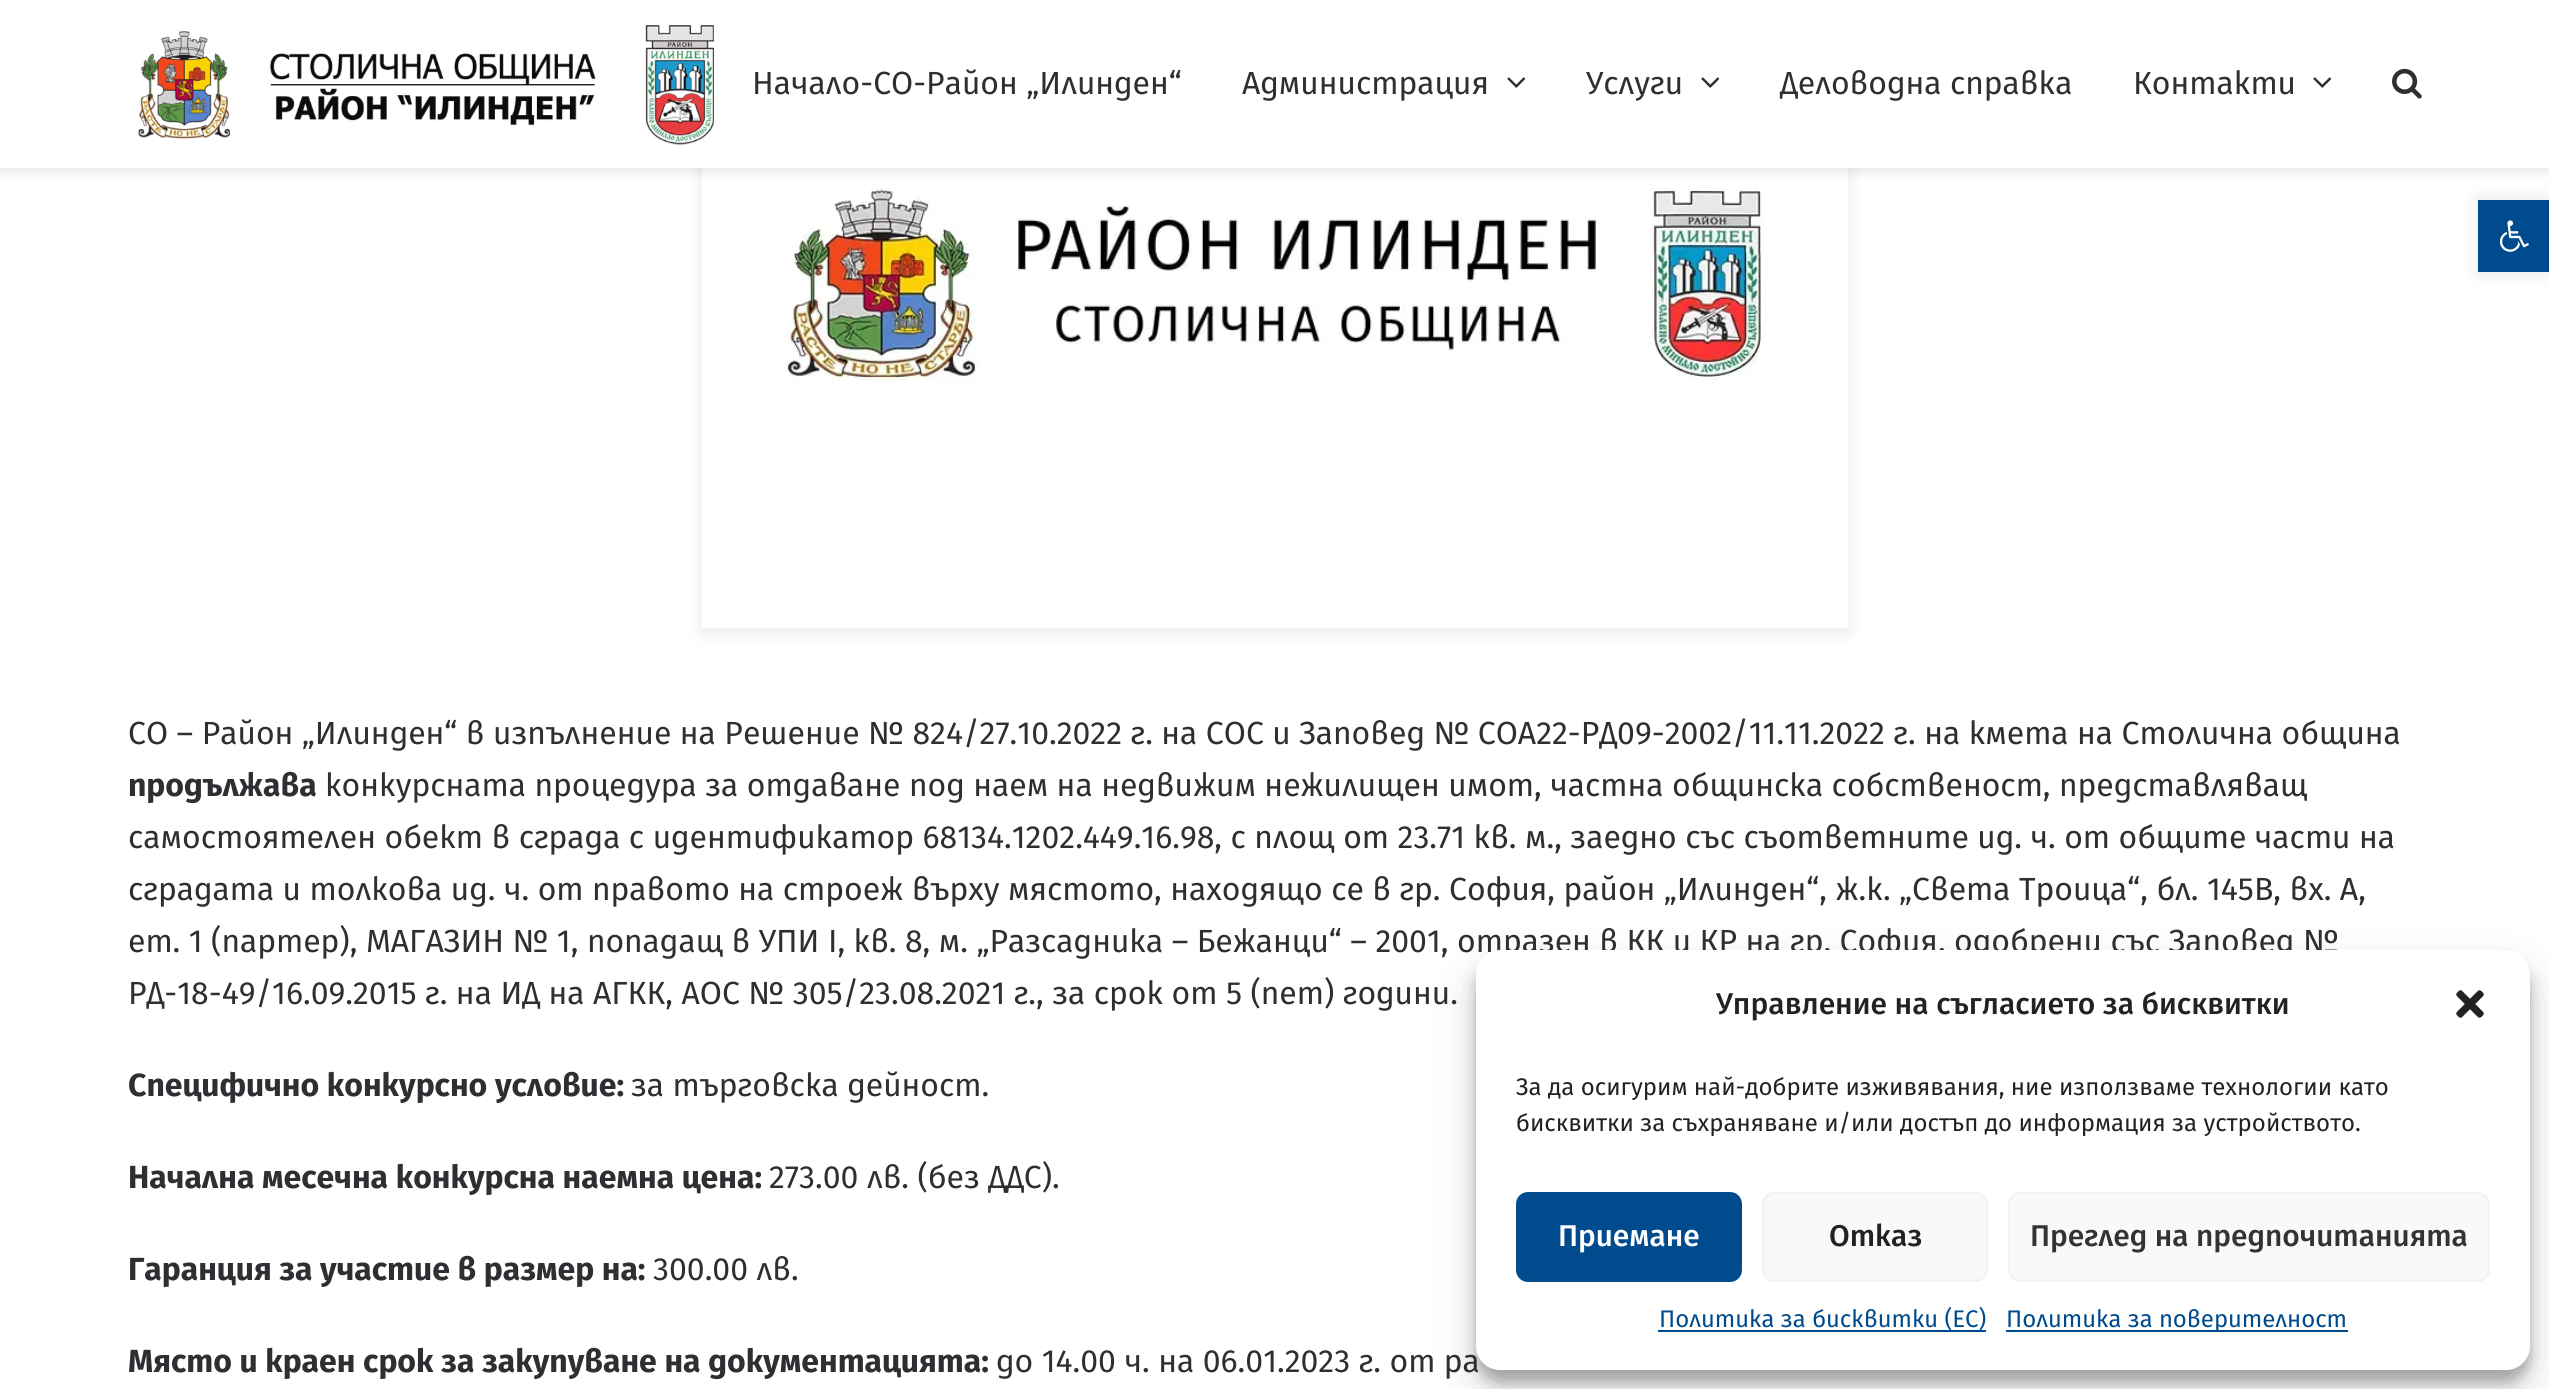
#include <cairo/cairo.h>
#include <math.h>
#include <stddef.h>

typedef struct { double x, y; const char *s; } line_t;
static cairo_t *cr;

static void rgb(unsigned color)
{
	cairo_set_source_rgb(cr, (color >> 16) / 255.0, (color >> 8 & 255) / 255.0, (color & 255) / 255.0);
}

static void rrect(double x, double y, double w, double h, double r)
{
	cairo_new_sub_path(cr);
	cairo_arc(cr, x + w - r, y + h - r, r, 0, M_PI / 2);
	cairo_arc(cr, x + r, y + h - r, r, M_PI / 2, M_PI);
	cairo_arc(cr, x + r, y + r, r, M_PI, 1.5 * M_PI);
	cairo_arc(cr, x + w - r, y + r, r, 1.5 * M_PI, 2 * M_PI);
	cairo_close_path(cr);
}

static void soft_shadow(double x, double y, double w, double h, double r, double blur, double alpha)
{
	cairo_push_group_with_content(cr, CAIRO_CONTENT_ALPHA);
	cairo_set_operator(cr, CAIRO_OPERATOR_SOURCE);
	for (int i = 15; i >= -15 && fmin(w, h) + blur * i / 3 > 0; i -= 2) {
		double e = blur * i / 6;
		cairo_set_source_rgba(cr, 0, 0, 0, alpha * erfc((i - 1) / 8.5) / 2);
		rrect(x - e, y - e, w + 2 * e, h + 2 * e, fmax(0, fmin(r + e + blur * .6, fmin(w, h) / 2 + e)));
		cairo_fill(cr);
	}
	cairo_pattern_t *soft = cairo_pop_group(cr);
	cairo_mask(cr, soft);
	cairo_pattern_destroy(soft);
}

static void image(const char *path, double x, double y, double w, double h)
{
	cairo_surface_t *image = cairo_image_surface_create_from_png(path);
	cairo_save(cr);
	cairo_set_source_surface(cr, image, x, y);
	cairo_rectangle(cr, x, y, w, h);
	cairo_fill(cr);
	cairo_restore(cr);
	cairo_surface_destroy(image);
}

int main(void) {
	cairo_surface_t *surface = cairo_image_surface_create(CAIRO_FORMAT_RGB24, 2549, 1389);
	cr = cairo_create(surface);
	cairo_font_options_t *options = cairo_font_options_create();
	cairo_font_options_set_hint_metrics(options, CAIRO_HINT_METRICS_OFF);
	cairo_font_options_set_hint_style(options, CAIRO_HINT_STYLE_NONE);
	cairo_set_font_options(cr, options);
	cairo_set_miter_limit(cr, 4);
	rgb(0xffffff);
	cairo_paint(cr);
	rgb(0x000000);
	soft_shadow(0, 4, 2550, 168, 0, 5, 0.1);
	cairo_save(cr);
	cairo_set_fill_rule(cr, CAIRO_FILL_RULE_EVEN_ODD);
	cairo_new_path(cr);
	cairo_move_to(cr, 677, 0);
	cairo_line_to(cr, 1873, 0);
	cairo_line_to(cr, 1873, 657);
	cairo_line_to(cr, 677, 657);
	cairo_close_path(cr);
	cairo_move_to(cr, 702, -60);
	cairo_line_to(cr, 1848, -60);
	cairo_line_to(cr, 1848, 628);
	cairo_line_to(cr, 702, 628);
	cairo_close_path(cr);
	cairo_clip(cr);
	rgb(0x636363);
	soft_shadow(702, -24, 1146, 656, 0, 8, 0.15);
	cairo_restore(cr);
	rgb(0xffffff);
	cairo_rectangle(cr, 0, 0, 2549, 168);
	cairo_fill(cr);
	image("img/1.png", 138, 25, 576, 120);
	image("img/2.png", 1507, 77, 19, 11);
	image("img/2.png", 1701, 77, 19, 11);
	image("img/2.png", 2313, 77, 19, 11);
	image("img/3.png", 2392, 68, 30, 31);
	image("img/4.png", 785, 188, 980, 193);
	rgb(0x000000);
	soft_shadow(2478, 200, 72, 72, 0, 10, 0.1);
	rgb(0x004b8d);
	cairo_rectangle(cr, 2478, 200, 71, 72);
	cairo_fill(cr);
	image("img/5.png", 2499, 220, 30, 32);
	rgb(0x000000);
	soft_shadow(1476, 962, 1054, 420, 24, 6, 0.23);
	soft_shadow(1476, 970, 1054, 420, 24, 20, 0.19);
	cairo_select_font_face(cr, "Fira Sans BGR", CAIRO_FONT_SLANT_NORMAL, CAIRO_FONT_WEIGHT_NORMAL);
	cairo_set_font_size(cr, 32);
	rgb(0x2d2f32);
	{
		static const line_t items[] = {
			{752, 94, "Начало-СО-Район „Илинден“"},
			{1242, 94, "Администрация"},
			{1586, 94, "Услуги"},
			{1780, 94, "Деловодна справка"},
			{2133, 94, "Контакти"},
			{128, 744, "СО – Район „Илинден“ в изпълнение на Решение № 824/27.10.2022 г. на СОС и Заповед № СОА22-РД09-2002/11.11.2022 г. на кмета на Столична община"},
		};
		for (size_t i = 0; i < sizeof items / sizeof *items; i++) {
			cairo_move_to(cr, items[i].x, items[i].y);
			cairo_show_text(cr, items[i].s);
		}
	}
	cairo_select_font_face(cr, "Fira Sans BGR", CAIRO_FONT_SLANT_NORMAL, CAIRO_FONT_WEIGHT_BOLD);
	cairo_move_to(cr, 128, 796);
	cairo_show_text(cr, "продължава");
	cairo_select_font_face(cr, "Fira Sans BGR", CAIRO_FONT_SLANT_NORMAL, CAIRO_FONT_WEIGHT_NORMAL);
	{
		static const line_t items[] = {
			{325, 796, "конкурсната процедура за отдаване под наем на недвижим нежилищен имот, частна общинска собственост, представляващ"},
			{128, 848, "самостоятелен обект в сграда с идентификатор 68134.1202.449.16.98, с площ от 23.71 кв. м., заедно със съответните ид. ч. от общите части на"},
			{128, 900, "сградата и толкова ид. ч. от правото на строеж върху мястото, находящо се в гр. София, район „Илинден“, ж.к. „Света Троица“, бл. 145В, вх. А,"},
			{128, 952, "ет. 1 (партер), МАГАЗИН № 1, попадащ в УПИ I, кв. 8, м. „Разсадника – Бежанци“ – 2001, отразен в КК и КР на гр. София, одобрени със Заповед №"},
			{128, 1004, "РД-18-49/16.09.2015 г. на ИД на АГКК, АОС № 305/23.08.2021 г., за срок от 5 (пет) години."},
		};
		for (size_t i = 0; i < sizeof items / sizeof *items; i++) {
			cairo_move_to(cr, items[i].x, items[i].y);
			cairo_show_text(cr, items[i].s);
		}
	}
	cairo_select_font_face(cr, "Fira Sans BGR", CAIRO_FONT_SLANT_NORMAL, CAIRO_FONT_WEIGHT_BOLD);
	cairo_move_to(cr, 128, 1096);
	cairo_show_text(cr, "Специфично конкурсно условие:");
	cairo_select_font_face(cr, "Fira Sans BGR", CAIRO_FONT_SLANT_NORMAL, CAIRO_FONT_WEIGHT_NORMAL);
	cairo_move_to(cr, 631, 1096);
	cairo_show_text(cr, "за търговска дейност.");
	cairo_select_font_face(cr, "Fira Sans BGR", CAIRO_FONT_SLANT_NORMAL, CAIRO_FONT_WEIGHT_BOLD);
	cairo_move_to(cr, 128, 1188);
	cairo_show_text(cr, "Начална месечна конкурсна наемна цена:");
	cairo_select_font_face(cr, "Fira Sans BGR", CAIRO_FONT_SLANT_NORMAL, CAIRO_FONT_WEIGHT_NORMAL);
	cairo_move_to(cr, 769, 1188);
	cairo_show_text(cr, "273.00 лв. (без ДДС).");
	cairo_select_font_face(cr, "Fira Sans BGR", CAIRO_FONT_SLANT_NORMAL, CAIRO_FONT_WEIGHT_BOLD);
	cairo_move_to(cr, 128, 1280);
	cairo_show_text(cr, "Гаранция за участие в размер на:");
	cairo_select_font_face(cr, "Fira Sans BGR", CAIRO_FONT_SLANT_NORMAL, CAIRO_FONT_WEIGHT_NORMAL);
	cairo_move_to(cr, 653, 1280);
	cairo_show_text(cr, "300.00 лв.");
	cairo_select_font_face(cr, "Fira Sans BGR", CAIRO_FONT_SLANT_NORMAL, CAIRO_FONT_WEIGHT_BOLD);
	cairo_move_to(cr, 128, 1372);
	cairo_show_text(cr, "Място и краен срок за закупуване на документацията:");
	cairo_select_font_face(cr, "Fira Sans BGR", CAIRO_FONT_SLANT_NORMAL, CAIRO_FONT_WEIGHT_NORMAL);
	cairo_move_to(cr, 996, 1372);
	cairo_show_text(cr, "до 14.00 ч. на 06.01.2023 г. от ра");
	rgb(0xffffff);
	rrect(1476, 950, 1054, 420, 24);
	cairo_fill(cr);
	cairo_select_font_face(cr, "Fira Sans Medium", CAIRO_FONT_SLANT_NORMAL, CAIRO_FONT_WEIGHT_NORMAL);
	cairo_set_font_size(cr, 30);
	rgb(0x222222);
	cairo_move_to(cr, 1716, 1014);
	cairo_show_text(cr, "Управление на съгласието за бисквитки");
	image("img/6.png", 2456, 990, 28, 28);
	cairo_select_font_face(cr, "Fira Sans", CAIRO_FONT_SLANT_NORMAL, CAIRO_FONT_WEIGHT_NORMAL);
	cairo_set_font_size(cr, 24);
	cairo_move_to(cr, 1516, 1095);
	cairo_show_text(cr, "За да осигурим най-добрите изживявания, ние използваме технологии като");
	cairo_move_to(cr, 1516, 1131);
	cairo_show_text(cr, "бисквитки за съхраняване и/или достъп до информация за устройството.");
	rgb(0x004b8d);
	rrect(1517, 1193, 224, 88, 11);
	cairo_fill_preserve(cr);
	cairo_stroke(cr);
	cairo_select_font_face(cr, "Fira Sans BGR Medium", CAIRO_FONT_SLANT_NORMAL, CAIRO_FONT_WEIGHT_NORMAL);
	cairo_set_font_size(cr, 30);
	rgb(0xffffff);
	cairo_move_to(cr, 1558, 1246);
	cairo_show_text(cr, "Приемане");
	rgb(0xf9f9f9);
	rrect(1763, 1193, 224, 88, 11);
	cairo_fill_preserve(cr);
	rgb(0xf2f2f2);
	cairo_stroke(cr);
	rgb(0x222222);
	cairo_move_to(cr, 1829, 1246);
	cairo_show_text(cr, "Отказ");
	rgb(0xf9f9f9);
	rrect(2009, 1193, 480, 88, 11);
	cairo_fill_preserve(cr);
	rgb(0xf2f2f2);
	cairo_stroke(cr);
	rgb(0x333333);
	cairo_move_to(cr, 2030, 1246);
	cairo_show_text(cr, "Преглед на предпочитанията");
	rgb(0x004b8d);
	cairo_rectangle(cr, 1658, 1330, 328, 2);
	cairo_fill(cr);
	cairo_select_font_face(cr, "Fira Sans BGR", CAIRO_FONT_SLANT_NORMAL, CAIRO_FONT_WEIGHT_NORMAL);
	cairo_set_font_size(cr, 24);
	cairo_move_to(cr, 1659, 1327);
	cairo_show_text(cr, "Политика за бисквитки (ЕС)");
	cairo_rectangle(cr, 2006, 1330, 342, 2);
	cairo_fill(cr);
	cairo_move_to(cr, 2006, 1327);
	cairo_show_text(cr, "Политика за поверителност");
	cairo_surface_write_to_png(surface, "page.png");
	cairo_font_options_destroy(options);
	cairo_destroy(cr);
	cairo_surface_destroy(surface);
	return 0;
}
